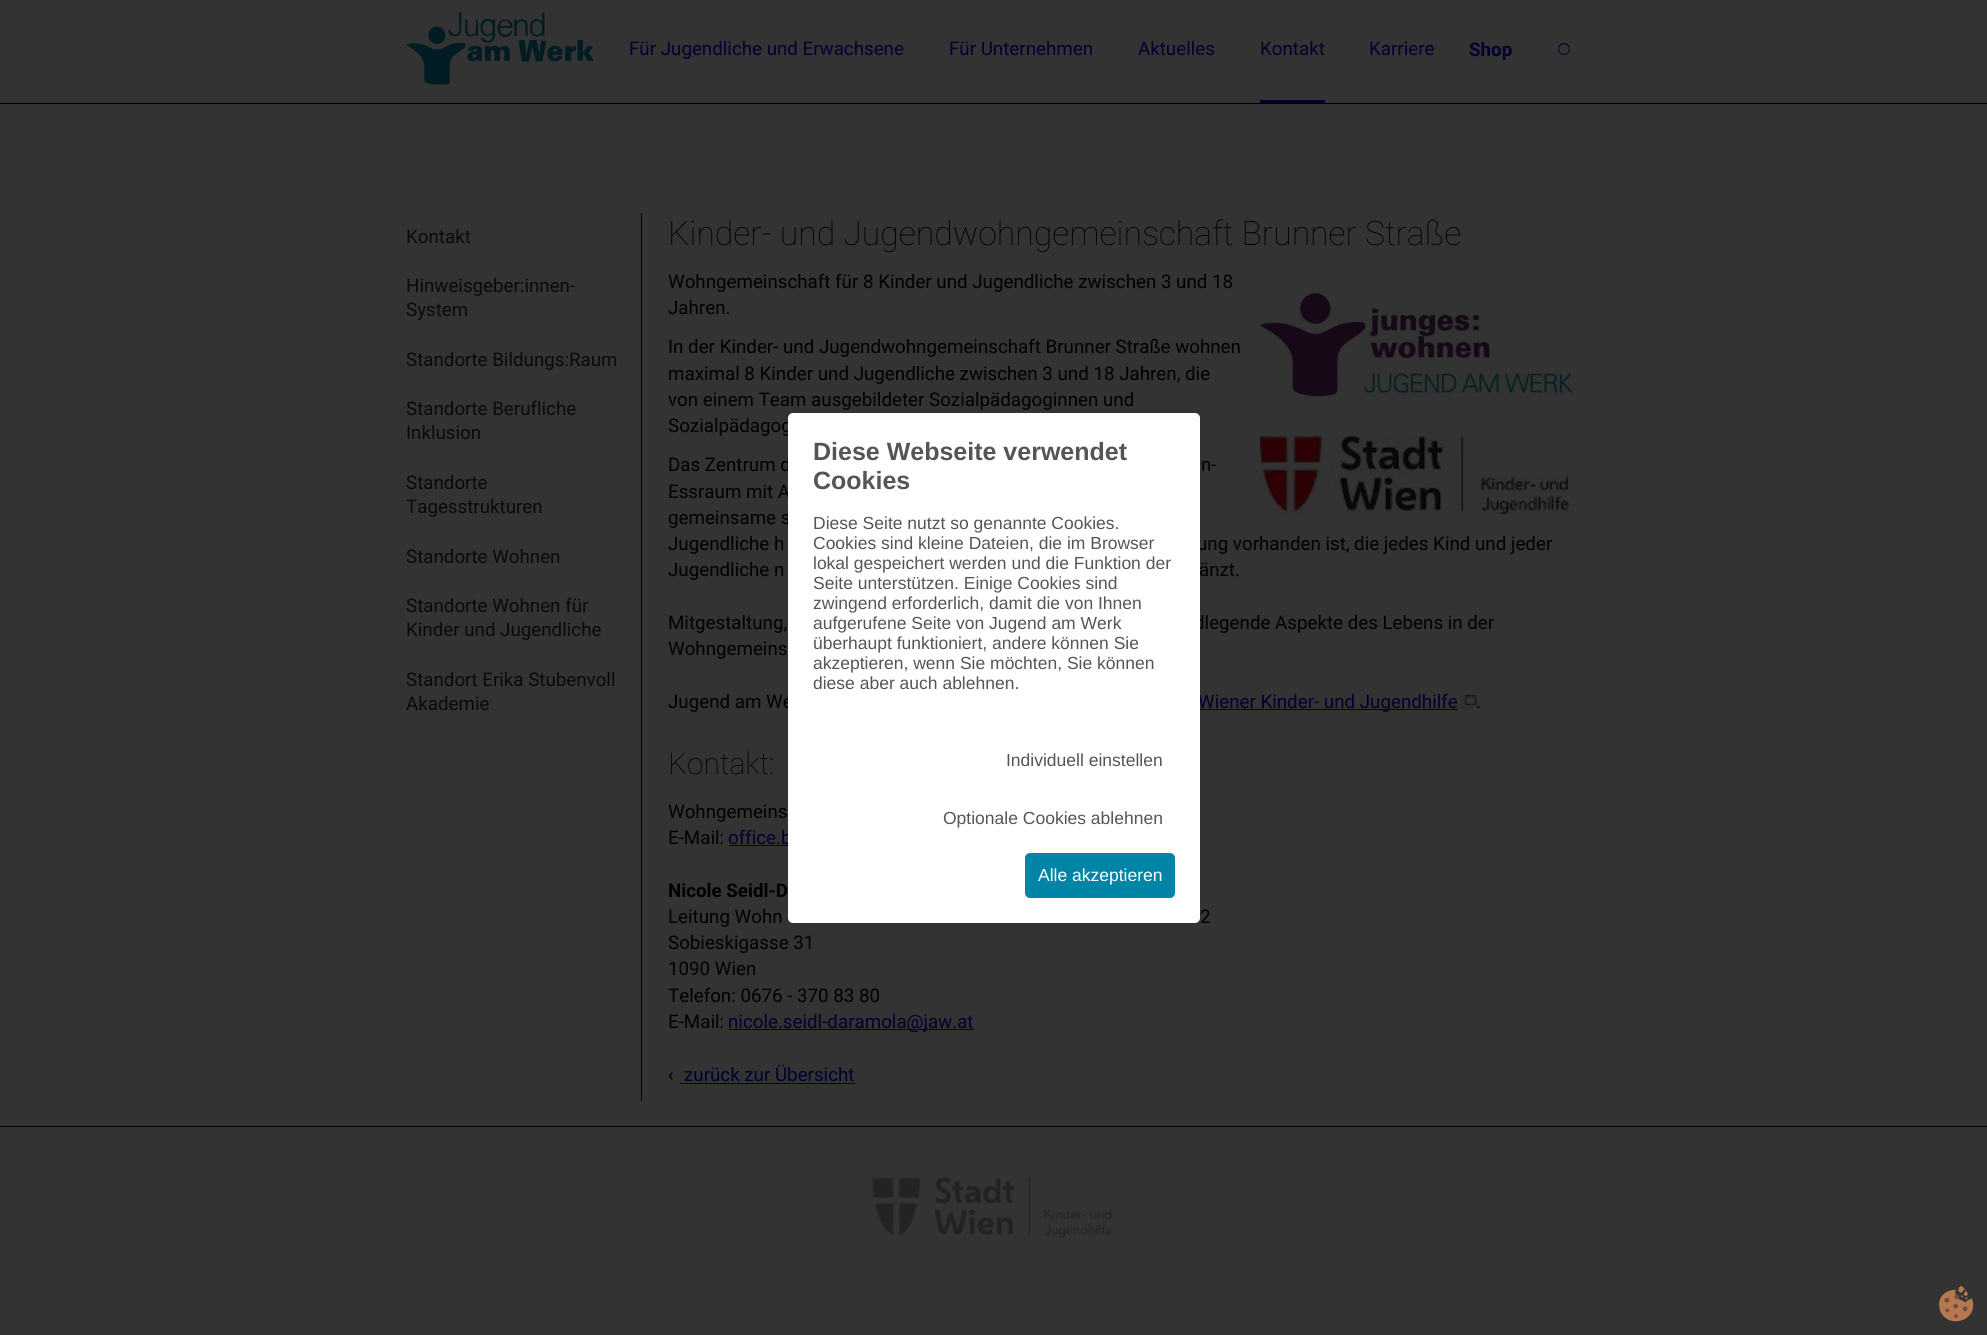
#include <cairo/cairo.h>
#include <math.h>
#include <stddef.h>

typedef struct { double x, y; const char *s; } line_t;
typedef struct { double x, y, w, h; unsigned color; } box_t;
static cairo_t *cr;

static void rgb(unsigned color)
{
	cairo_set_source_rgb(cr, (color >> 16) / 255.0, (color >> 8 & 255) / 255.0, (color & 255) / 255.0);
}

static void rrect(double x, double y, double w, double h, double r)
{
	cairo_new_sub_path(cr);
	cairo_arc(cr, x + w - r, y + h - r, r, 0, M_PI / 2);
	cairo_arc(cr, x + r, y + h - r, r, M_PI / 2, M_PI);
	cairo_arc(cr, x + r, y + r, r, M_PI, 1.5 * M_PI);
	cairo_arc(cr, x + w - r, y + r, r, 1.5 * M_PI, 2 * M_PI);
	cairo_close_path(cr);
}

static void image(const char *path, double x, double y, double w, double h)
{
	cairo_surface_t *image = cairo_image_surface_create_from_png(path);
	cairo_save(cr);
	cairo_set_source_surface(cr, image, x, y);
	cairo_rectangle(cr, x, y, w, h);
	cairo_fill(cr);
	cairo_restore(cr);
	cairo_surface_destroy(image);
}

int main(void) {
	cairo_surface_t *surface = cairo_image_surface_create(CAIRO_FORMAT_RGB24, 1987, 1335);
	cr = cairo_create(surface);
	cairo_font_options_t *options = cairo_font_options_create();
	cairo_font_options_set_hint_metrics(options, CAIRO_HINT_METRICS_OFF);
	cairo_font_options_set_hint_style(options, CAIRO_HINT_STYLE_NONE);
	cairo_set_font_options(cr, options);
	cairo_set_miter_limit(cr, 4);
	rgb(0x333333);
	cairo_paint(cr);
	rgb(0x000000);
	cairo_rectangle(cr, 0, 103, 1987, 1);
	cairo_fill(cr);
	image("img/1.png", 406, 12, 188, 73);
	rgb(0x000030);
	cairo_rectangle(cr, 1260, 100, 65, 3);
	cairo_fill(cr);
	cairo_arc(cr, 1564, 49, 5.5, 0, 2 * M_PI);
	cairo_set_line_width(cr, 1);
	cairo_stroke(cr);
	rgb(0x000000);
	cairo_rectangle(cr, 641, 213, 1, 888);
	cairo_fill(cr);
	image("img/2.png", 1260, 289, 313, 111);
	image("img/3.png", 1260, 436, 310, 78);
	rgb(0x000030);
	cairo_rectangle(cr, 1198, 709, 260, 1);
	cairo_fill(cr);
	image("img/4.png", 1461, 695, 16, 14);
	{
		static const box_t items[] = {
			{729, 845, 59, 1, 0x000030},
			{729, 1029, 245, 1, 0x000030},
			{680, 1083, 175, 1, 0x000030},
			{0, 1126, 1987, 1, 0x000000},
		};
		for (size_t i = 0; i < sizeof items / sizeof *items; i++) {
			rgb(items[i].color);
			cairo_rectangle(cr, items[i].x, items[i].y, items[i].w, items[i].h);
			cairo_fill(cr);
		}
	}
	image("img/5.png", 872, 1177, 241, 61);
	image("img/6.png", 1939, 1285, 35, 37);
	cairo_select_font_face(cr, "Roboto", CAIRO_FONT_SLANT_NORMAL, CAIRO_FONT_WEIGHT_NORMAL);
	cairo_set_font_size(cr, 18.75);
	rgb(0x000030);
	{
		static const line_t items[] = {
			{629, 55, "Für Jugendliche und Erwachsene"},
			{949, 55, "Für Unternehmen"},
			{1138, 55, "Aktuelles"},
			{1260, 55, "Kontakt"},
			{1369, 55, "Karriere"},
		};
		for (size_t i = 0; i < sizeof items / sizeof *items; i++) {
			cairo_move_to(cr, items[i].x, items[i].y);
			cairo_show_text(cr, items[i].s);
		}
	}
	cairo_select_font_face(cr, "Roboto", CAIRO_FONT_SLANT_NORMAL, CAIRO_FONT_WEIGHT_BOLD);
	cairo_move_to(cr, 1469, 56);
	cairo_show_text(cr, "Shop");
	cairo_select_font_face(cr, "Roboto", CAIRO_FONT_SLANT_NORMAL, CAIRO_FONT_WEIGHT_NORMAL);
	rgb(0x0a0a0a);
	{
		static const line_t items[] = {
			{406, 243, "Kontakt"},
			{406, 292, "Hinweisgeber:innen-"},
			{406, 316, "System"},
			{406, 366, "Standorte Bildungs:Raum"},
			{406, 415, "Standorte Berufliche"},
			{406, 439, "Inklusion"},
			{406, 489, "Standorte"},
			{406, 513, "Tagesstrukturen"},
			{406, 563, "Standorte Wohnen"},
			{406, 612, "Standorte Wohnen für"},
			{406, 636, "Kinder und Jugendliche"},
			{406, 686, "Standort Erika Stubenvoll"},
			{406, 710, "Akademie"},
		};
		for (size_t i = 0; i < sizeof items / sizeof *items; i++) {
			cairo_move_to(cr, items[i].x, items[i].y);
			cairo_show_text(cr, items[i].s);
		}
	}
	cairo_select_font_face(cr, "Roboto Thin", CAIRO_FONT_SLANT_NORMAL, CAIRO_FONT_WEIGHT_NORMAL);
	cairo_set_font_size(cr, 33.75);
	rgb(0x000000);
	cairo_move_to(cr, 668, 245);
	cairo_show_text(cr, "Kinder- und Jugendwohngemeinschaft Brunner Straße");
	cairo_select_font_face(cr, "Roboto", CAIRO_FONT_SLANT_NORMAL, CAIRO_FONT_WEIGHT_NORMAL);
	cairo_set_font_size(cr, 18.75);
	{
		static const line_t items[] = {
			{668, 288, "Wohngemeinschaft für 8 Kinder und Jugendliche zwischen 3 und 18"},
			{668, 314, "Jahren."},
			{668, 353, "In der Kinder- und Jugendwohngemeinschaft Brunner Straße wohnen"},
			{668, 380, "maximal 8 Kinder und Jugendliche zwischen 3 und 18 Jahren, die"},
			{668, 406, "von einem Team ausgebildeter Sozialpädagoginnen und"},
			{668, 432, "Sozialpädagog"},
			{668, 471, "Das Zentrum d"},
			{1201, 471, "n-"},
			{668, 498, "Essraum mit A"},
			{668, 524, "gemeinsame s"},
			{668, 550, "Jugendliche h"},
			{1197, 550, "ung vorhanden ist, die jedes Kind und jeder"},
			{668, 576, "Jugendliche n"},
			{1199, 576, "änzt."},
			{668, 629, "Mitgestaltung,"},
			{1194, 629, "dlegende Aspekte des Lebens in der"},
			{668, 655, "Wohngemeins"},
			{668, 708, "Jugend am We"},
		};
		for (size_t i = 0; i < sizeof items / sizeof *items; i++) {
			cairo_move_to(cr, items[i].x, items[i].y);
			cairo_show_text(cr, items[i].s);
		}
	}
	rgb(0x000030);
	cairo_move_to(cr, 1198, 708);
	cairo_show_text(cr, "Wiener Kinder- und Jugendhilfe");
	rgb(0x000000);
	cairo_move_to(cr, 1476, 708);
	cairo_show_text(cr, ".");
	cairo_select_font_face(cr, "Roboto Thin", CAIRO_FONT_SLANT_NORMAL, CAIRO_FONT_WEIGHT_NORMAL);
	cairo_set_font_size(cr, 30);
	cairo_move_to(cr, 668, 774);
	cairo_show_text(cr, "Kontakt:");
	cairo_select_font_face(cr, "Roboto", CAIRO_FONT_SLANT_NORMAL, CAIRO_FONT_WEIGHT_NORMAL);
	cairo_set_font_size(cr, 18.75);
	cairo_move_to(cr, 668, 818);
	cairo_show_text(cr, "Wohngemeins");
	cairo_move_to(cr, 668, 844);
	cairo_show_text(cr, "E-Mail:");
	rgb(0x000030);
	cairo_move_to(cr, 728, 844);
	cairo_show_text(cr, "office.b");
	cairo_select_font_face(cr, "Roboto", CAIRO_FONT_SLANT_NORMAL, CAIRO_FONT_WEIGHT_BOLD);
	rgb(0x000000);
	cairo_move_to(cr, 668, 897);
	cairo_show_text(cr, "Nicole Seidl-D");
	cairo_select_font_face(cr, "Roboto", CAIRO_FONT_SLANT_NORMAL, CAIRO_FONT_WEIGHT_NORMAL);
	{
		static const line_t items[] = {
			{668, 923, "Leitung Wohn"},
			{1200, 923, "2"},
			{668, 949, "Sobieskigasse 31"},
			{668, 975, "1090 Wien"},
			{668, 1002, "Telefon: 0676 - 370 83 80"},
			{668, 1028, "E-Mail:"},
		};
		for (size_t i = 0; i < sizeof items / sizeof *items; i++) {
			cairo_move_to(cr, items[i].x, items[i].y);
			cairo_show_text(cr, items[i].s);
		}
	}
	rgb(0x000030);
	cairo_move_to(cr, 728, 1028);
	cairo_show_text(cr, "nicole.seidl-daramola@jaw.at");
	rgb(0x000000);
	cairo_move_to(cr, 668, 1081);
	cairo_show_text(cr, "‹");
	rgb(0x000030);
	cairo_move_to(cr, 684, 1081);
	cairo_show_text(cr, "zurück zur Übersicht");
	rgb(0xffffff);
	rrect(788, 413, 412, 510, 5);
	cairo_fill(cr);
	cairo_select_font_face(cr, "Liberation Sans", CAIRO_FONT_SLANT_NORMAL, CAIRO_FONT_WEIGHT_BOLD);
	cairo_set_font_size(cr, 25);
	rgb(0x555555);
	cairo_move_to(cr, 813, 460);
	cairo_show_text(cr, "Diese Webseite verwendet");
	cairo_move_to(cr, 813, 489);
	cairo_show_text(cr, "Cookies");
	cairo_select_font_face(cr, "Liberation Sans", CAIRO_FONT_SLANT_NORMAL, CAIRO_FONT_WEIGHT_NORMAL);
	cairo_set_font_size(cr, 17.5);
	{
		static const line_t items[] = {
			{813, 529, "Diese Seite nutzt so genannte Cookies."},
			{813, 549, "Cookies sind kleine Dateien, die im Browser"},
			{813, 569, "lokal gespeichert werden und die Funktion der"},
			{813, 589, "Seite unterstützen. Einige Cookies sind"},
			{813, 609, "zwingend erforderlich, damit die von Ihnen"},
			{813, 629, "aufgerufene Seite von Jugend am Werk"},
			{813, 649, "überhaupt funktioniert, andere können Sie"},
			{813, 669, "akzeptieren, wenn Sie möchten, Sie können"},
			{813, 689, "diese aber auch ablehnen."},
			{1006, 766, "Individuell einstellen"},
			{943, 824, "Optionale Cookies ablehnen"},
		};
		for (size_t i = 0; i < sizeof items / sizeof *items; i++) {
			cairo_move_to(cr, items[i].x, items[i].y);
			cairo_show_text(cr, items[i].s);
		}
	}
	rgb(0x0185a7);
	rrect(1025, 853, 150, 45, 5);
	cairo_fill(cr);
	rgb(0xffffff);
	cairo_move_to(cr, 1038, 881);
	cairo_show_text(cr, "Alle akzeptieren");
	cairo_surface_write_to_png(surface, "page.png");
	cairo_font_options_destroy(options);
	cairo_destroy(cr);
	cairo_surface_destroy(surface);
	return 0;
}
